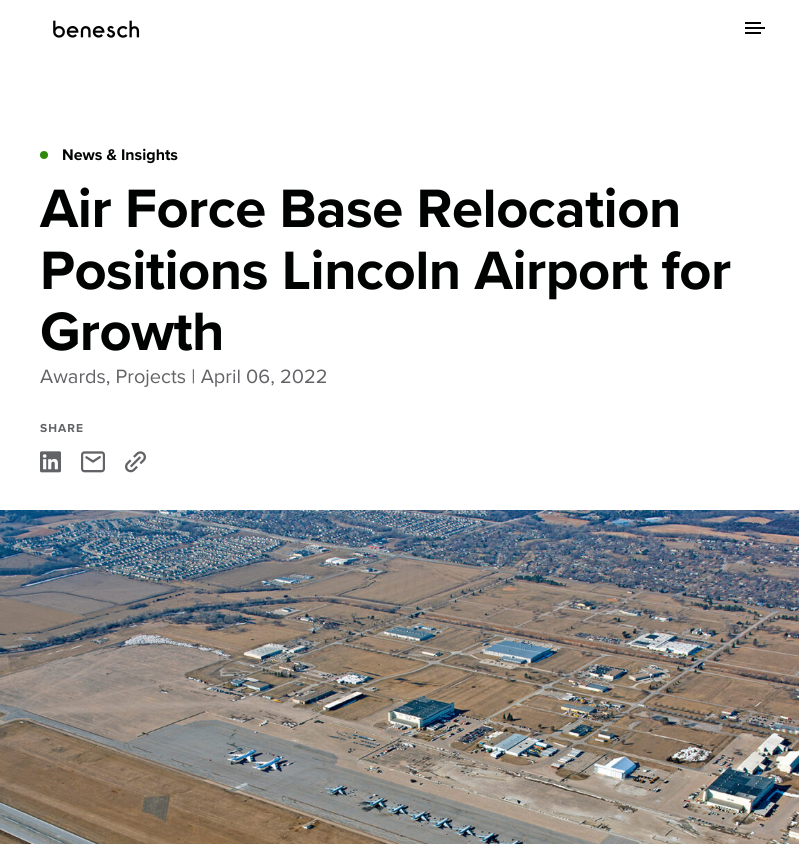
#include <cairo/cairo.h>
#include <math.h>
#include <stddef.h>

typedef struct { double x, y; const char *s; } line_t;
typedef struct { double x, y, w, h; unsigned color; } box_t;
static cairo_t *cr;

static void rgb(unsigned color)
{
	cairo_set_source_rgb(cr, (color >> 16) / 255.0, (color >> 8 & 255) / 255.0, (color & 255) / 255.0);
}

static void tracked(double x, double y, const char *s, double letter, double word)
{
	cairo_move_to(cr, x, y);
	while (*s) {
		char ch[5] = {0};
		int n = 0;
		do ch[n++] = *s++; while ((*s & 0xC0) == 0x80);
		cairo_show_text(cr, ch);
		cairo_rel_move_to(cr, letter + word * (*ch == ' '), 0);
	}
}

static void image(const char *path, double x, double y, double w, double h)
{
	cairo_surface_t *image = cairo_image_surface_create_from_png(path);
	cairo_save(cr);
	cairo_set_source_surface(cr, image, x, y);
	cairo_rectangle(cr, x, y, w, h);
	cairo_fill(cr);
	cairo_restore(cr);
	cairo_surface_destroy(image);
}

int main(void) {
	cairo_surface_t *surface = cairo_image_surface_create(CAIRO_FORMAT_RGB24, 799, 844);
	cr = cairo_create(surface);
	cairo_font_options_t *options = cairo_font_options_create();
	cairo_font_options_set_hint_metrics(options, CAIRO_HINT_METRICS_OFF);
	cairo_font_options_set_hint_style(options, CAIRO_HINT_STYLE_NONE);
	cairo_set_font_options(cr, options);
	cairo_set_miter_limit(cr, 4);
	rgb(0xffffff);
	cairo_paint(cr);
	image("img/1.png", 53, 20, 87, 18);
	{
		static const box_t items[] = {
			{745, 27, 20, 2, 0x010202},
			{745, 22, 16, 2, 0x010202},
			{745, 32, 16, 2, 0x010202},
		};
		for (size_t i = 0; i < sizeof items / sizeof *items; i++) {
			rgb(items[i].color);
			cairo_rectangle(cr, items[i].x, items[i].y, items[i].w, items[i].h);
			cairo_fill(cr);
		}
	}
	rgb(0x2f8809);
	cairo_arc(cr, 44, 155, 4, 0, 2 * M_PI);
	cairo_fill(cr);
	image("img/2.png", 40, 451, 21, 22);
	image("img/3.png", 81, 451, 24, 22);
	image("img/4.png", 125, 451, 21, 22);
	image("img/5.png", 0, 510, 799, 334);
	cairo_select_font_face(cr, "Proxima Nova", CAIRO_FONT_SLANT_NORMAL, CAIRO_FONT_WEIGHT_BOLD);
	cairo_set_font_size(cr, 16);
	rgb(0x010202);
	cairo_move_to(cr, 62, 160);
	cairo_show_text(cr, "News & Insights");
	cairo_set_font_size(cr, 56);
	{
		static const line_t items[] = {
			{40, 227, "Air Force Base Relocation"},
			{40, 289, "Positions Lincoln Airport for"},
			{40, 350, "Growth"},
		};
		for (size_t i = 0; i < sizeof items / sizeof *items; i++) {
			tracked(items[i].x, items[i].y, items[i].s, -0.5, 0);
		}
	}
	cairo_select_font_face(cr, "Proxima Nova", CAIRO_FONT_SLANT_NORMAL, CAIRO_FONT_WEIGHT_NORMAL);
	cairo_set_font_size(cr, 20);
	rgb(0x626366);
	cairo_move_to(cr, 40, 383);
	cairo_show_text(cr, "Awards, Projects | April 06, 2022");
	cairo_select_font_face(cr, "Proxima Nova", CAIRO_FONT_SLANT_NORMAL, CAIRO_FONT_WEIGHT_BOLD);
	cairo_set_font_size(cr, 12);
	tracked(40, 432, "SHARE", 1, 0);
	cairo_surface_write_to_png(surface, "page.png");
	cairo_font_options_destroy(options);
	cairo_destroy(cr);
	cairo_surface_destroy(surface);
	return 0;
}
